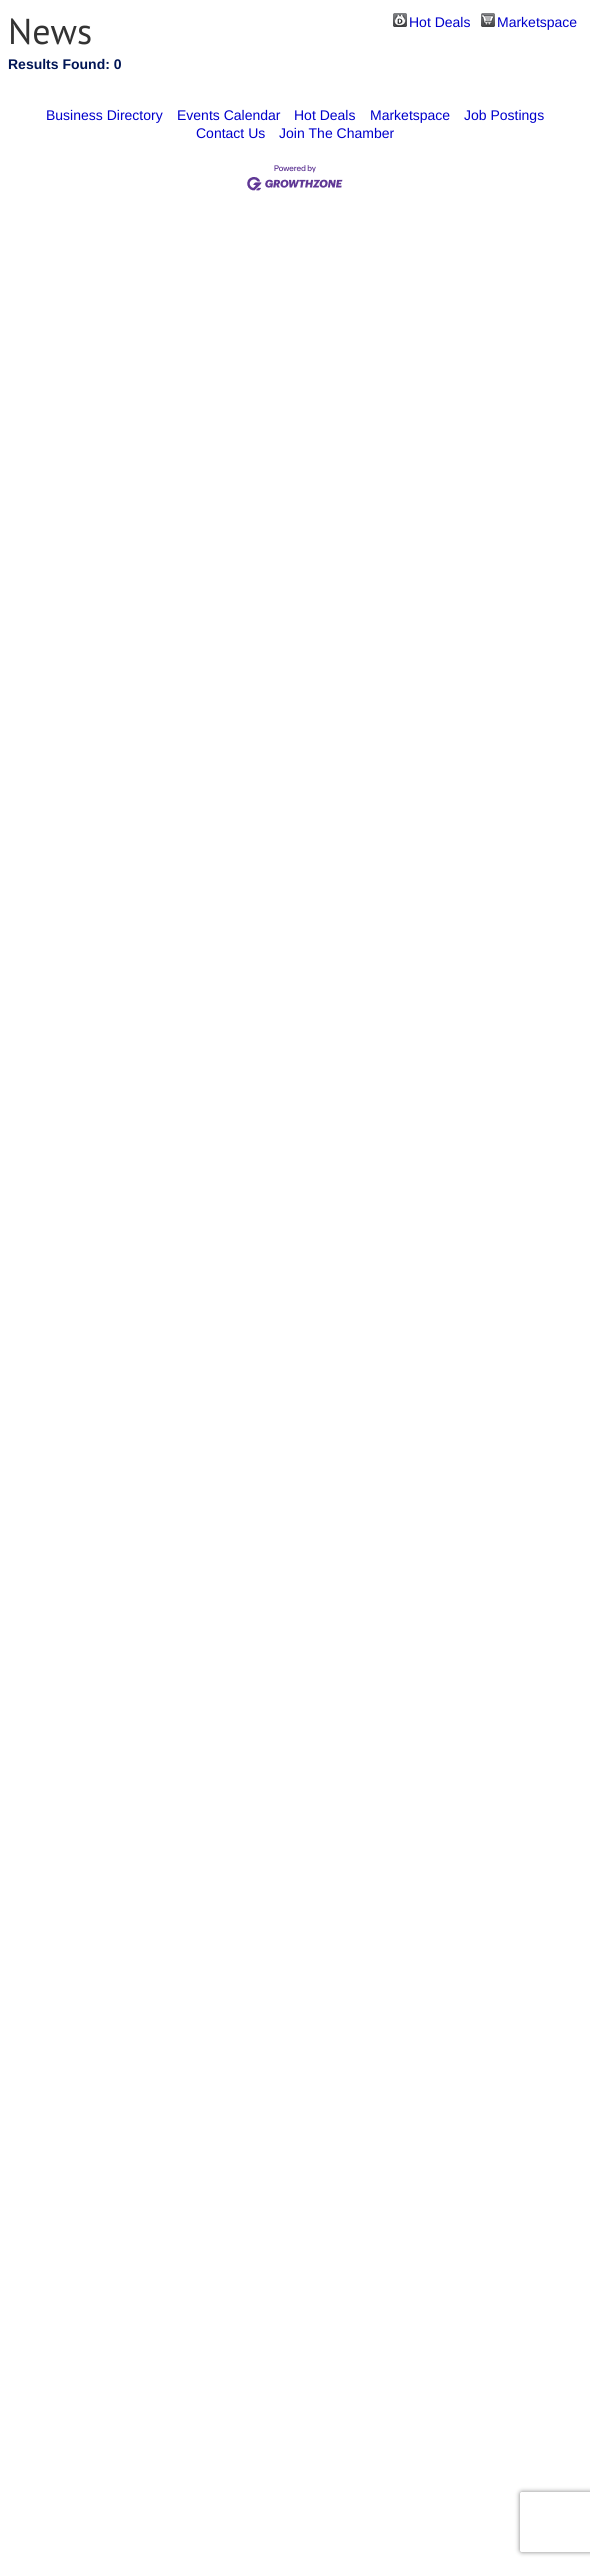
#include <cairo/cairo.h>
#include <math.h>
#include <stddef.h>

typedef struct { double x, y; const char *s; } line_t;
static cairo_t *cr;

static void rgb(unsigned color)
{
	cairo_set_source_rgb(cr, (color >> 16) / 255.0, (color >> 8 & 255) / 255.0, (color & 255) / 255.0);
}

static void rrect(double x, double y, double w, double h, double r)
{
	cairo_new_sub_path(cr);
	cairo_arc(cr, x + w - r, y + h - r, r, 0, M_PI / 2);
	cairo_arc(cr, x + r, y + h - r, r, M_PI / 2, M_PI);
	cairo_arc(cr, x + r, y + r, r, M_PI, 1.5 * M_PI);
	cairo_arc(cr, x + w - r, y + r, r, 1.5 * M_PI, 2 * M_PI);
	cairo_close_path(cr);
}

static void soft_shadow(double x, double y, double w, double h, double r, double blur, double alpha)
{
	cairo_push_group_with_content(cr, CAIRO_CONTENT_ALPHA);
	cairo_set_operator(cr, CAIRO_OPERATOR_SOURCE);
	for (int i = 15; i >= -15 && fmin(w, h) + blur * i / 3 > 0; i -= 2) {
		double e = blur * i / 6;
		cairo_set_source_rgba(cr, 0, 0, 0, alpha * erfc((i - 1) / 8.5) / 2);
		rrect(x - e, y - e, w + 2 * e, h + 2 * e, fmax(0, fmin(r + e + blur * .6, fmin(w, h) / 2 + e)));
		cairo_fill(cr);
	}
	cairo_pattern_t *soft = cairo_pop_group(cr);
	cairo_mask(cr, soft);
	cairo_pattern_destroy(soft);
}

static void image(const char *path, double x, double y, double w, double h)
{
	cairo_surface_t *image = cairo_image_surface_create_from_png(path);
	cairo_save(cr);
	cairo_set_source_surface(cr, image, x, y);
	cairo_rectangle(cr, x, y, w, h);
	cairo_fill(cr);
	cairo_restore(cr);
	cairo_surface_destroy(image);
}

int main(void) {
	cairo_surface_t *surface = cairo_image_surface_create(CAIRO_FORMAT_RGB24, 590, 2566);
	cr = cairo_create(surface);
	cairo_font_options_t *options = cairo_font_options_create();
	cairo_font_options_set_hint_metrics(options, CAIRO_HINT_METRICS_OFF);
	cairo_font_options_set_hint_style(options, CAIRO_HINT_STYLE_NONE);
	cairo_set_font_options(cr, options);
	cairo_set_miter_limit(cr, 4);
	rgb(0xffffff);
	cairo_paint(cr);
	image("img/1.png", 393, 13, 14, 14);
	image("img/2.png", 481, 13, 14, 14);
	image("img/3.png", 247, 165, 96, 26);
	cairo_save(cr);
	cairo_set_fill_rule(cr, CAIRO_FILL_RULE_EVEN_ODD);
	cairo_new_path(cr);
	cairo_move_to(cr, 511, 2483);
	cairo_line_to(cr, 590, 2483);
	cairo_line_to(cr, 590, 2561);
	cairo_line_to(cr, 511, 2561);
	cairo_close_path(cr);
	cairo_move_to(cr, 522, 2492);
	cairo_line_to(cr, 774, 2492);
	cairo_curve_to(cr, 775, 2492, 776, 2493, 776, 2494);
	cairo_line_to(cr, 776, 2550);
	cairo_curve_to(cr, 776, 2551, 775, 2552, 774, 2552);
	cairo_line_to(cr, 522, 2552);
	cairo_curve_to(cr, 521, 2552, 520, 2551, 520, 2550);
	cairo_line_to(cr, 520, 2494);
	cairo_curve_to(cr, 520, 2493, 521, 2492, 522, 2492);
	cairo_close_path(cr);
	cairo_clip(cr);
	rgb(0x808080);
	soft_shadow(520, 2492, 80, 60, 2, 2.5, 1);
	cairo_restore(cr);
	cairo_select_font_face(cr, "PT Sans", CAIRO_FONT_SLANT_NORMAL, CAIRO_FONT_WEIGHT_NORMAL);
	cairo_set_font_size(cr, 36);
	rgb(0x333333);
	cairo_move_to(cr, 8, 44);
	cairo_show_text(cr, "News");
	cairo_select_font_face(cr, "Liberation Sans", CAIRO_FONT_SLANT_NORMAL, CAIRO_FONT_WEIGHT_NORMAL);
	cairo_set_font_size(cr, 14);
	rgb(0x0000cc);
	cairo_move_to(cr, 409, 27);
	cairo_show_text(cr, "Hot Deals");
	cairo_move_to(cr, 497, 27);
	cairo_show_text(cr, "Marketspace");
	cairo_select_font_face(cr, "Liberation Sans", CAIRO_FONT_SLANT_NORMAL, CAIRO_FONT_WEIGHT_BOLD);
	rgb(0x001555);
	cairo_move_to(cr, 8, 69);
	cairo_show_text(cr, "Results Found: 0");
	cairo_select_font_face(cr, "Liberation Sans", CAIRO_FONT_SLANT_NORMAL, CAIRO_FONT_WEIGHT_NORMAL);
	rgb(0x0000cc);
	{
		static const line_t items[] = {
			{46, 120, "Business Directory"},
			{177, 120, "Events Calendar"},
			{294, 120, "Hot Deals"},
			{370, 120, "Marketspace"},
			{464, 120, "Job Postings"},
			{196, 138, "Contact Us"},
			{279, 138, "Join The Chamber"},
		};
		for (size_t i = 0; i < sizeof items / sizeof *items; i++) {
			cairo_move_to(cr, items[i].x, items[i].y);
			cairo_show_text(cr, items[i].s);
		}
	}
	cairo_surface_write_to_png(surface, "page.png");
	cairo_font_options_destroy(options);
	cairo_destroy(cr);
	cairo_surface_destroy(surface);
	return 0;
}
